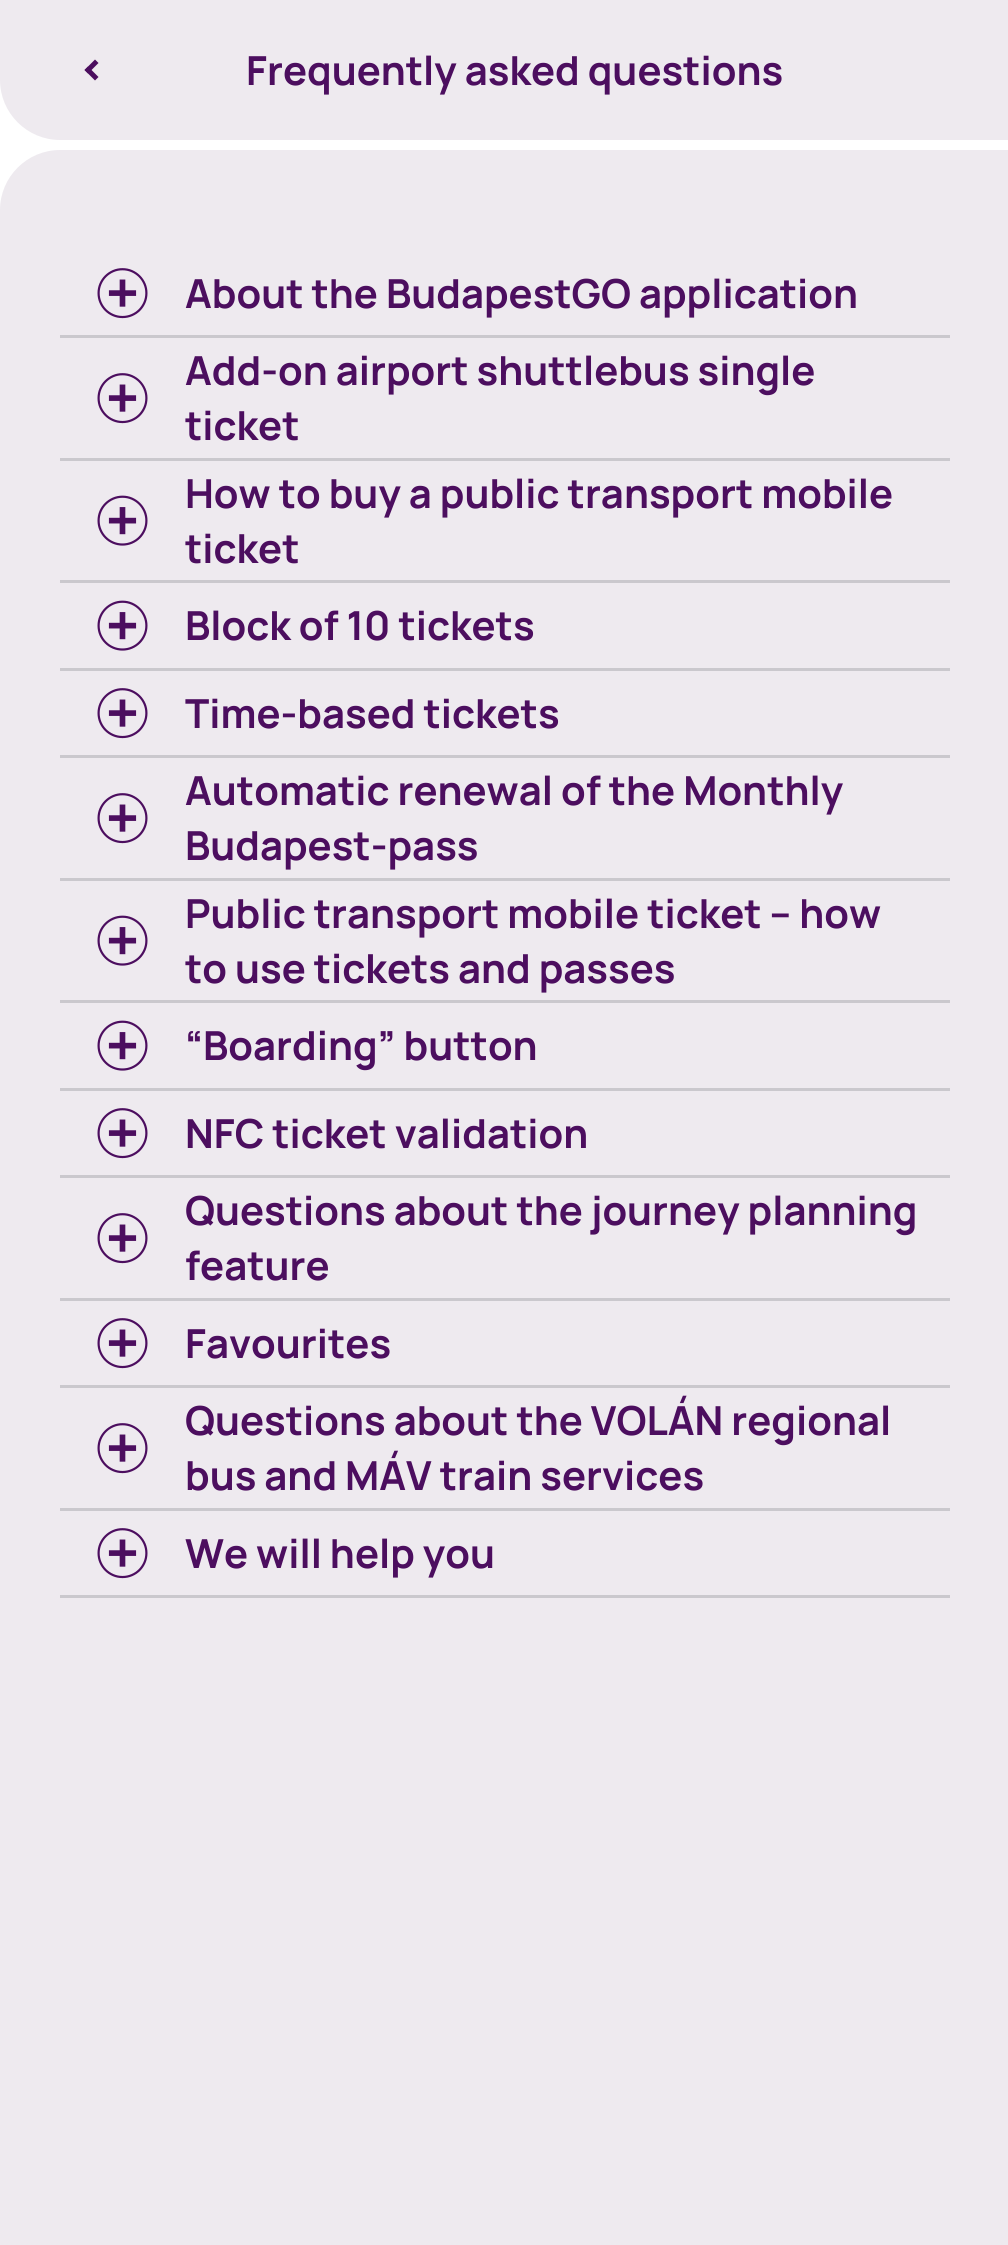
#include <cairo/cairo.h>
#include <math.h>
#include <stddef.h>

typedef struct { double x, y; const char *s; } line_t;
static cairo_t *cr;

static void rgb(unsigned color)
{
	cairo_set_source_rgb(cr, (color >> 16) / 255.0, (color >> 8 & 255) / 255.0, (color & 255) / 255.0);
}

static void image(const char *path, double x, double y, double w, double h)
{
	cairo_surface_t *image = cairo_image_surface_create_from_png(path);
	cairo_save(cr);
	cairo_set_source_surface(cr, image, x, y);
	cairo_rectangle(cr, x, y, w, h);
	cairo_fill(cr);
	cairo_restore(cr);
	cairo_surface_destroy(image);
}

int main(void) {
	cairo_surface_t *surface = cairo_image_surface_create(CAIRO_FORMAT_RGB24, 1008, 2245);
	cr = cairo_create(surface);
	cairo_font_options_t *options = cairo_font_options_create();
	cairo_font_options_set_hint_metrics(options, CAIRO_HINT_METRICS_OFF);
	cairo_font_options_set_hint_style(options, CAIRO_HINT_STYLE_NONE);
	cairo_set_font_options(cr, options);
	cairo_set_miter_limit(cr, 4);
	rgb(0xffffff);
	cairo_paint(cr);
	rgb(0xeeeaef);
	cairo_new_path(cr);
	cairo_move_to(cr, 0, 0);
	cairo_line_to(cr, 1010, 0);
	cairo_line_to(cr, 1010, 140);
	cairo_line_to(cr, 60, 140);
	cairo_curve_to(cr, 27, 140, 0, 113, 0, 80);
	cairo_close_path(cr);
	cairo_fill(cr);
	rgb(0x4c0e5f);
	cairo_new_path(cr);
	cairo_move_to(cr, 84.5, 70);
	cairo_line_to(cr, 95, 59.5);
	cairo_line_to(cr, 98.5, 63);
	cairo_line_to(cr, 88, 73.5);
	cairo_close_path(cr);
	cairo_fill(cr);
	cairo_new_path(cr);
	cairo_move_to(cr, 84.5, 70);
	cairo_line_to(cr, 88, 66.5);
	cairo_line_to(cr, 98.5, 77);
	cairo_line_to(cr, 95, 80.5);
	cairo_close_path(cr);
	cairo_fill(cr);
	rgb(0xeeeaef);
	cairo_new_path(cr);
	cairo_move_to(cr, 60, 150);
	cairo_line_to(cr, 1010, 150);
	cairo_line_to(cr, 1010, 2245);
	cairo_line_to(cr, 0, 2245);
	cairo_line_to(cr, 0, 210);
	cairo_curve_to(cr, 0, 177, 27, 150, 60, 150);
	cairo_close_path(cr);
	cairo_fill(cr);
	image("img/1.png", 97, 268, 51, 51);
	rgb(0xcac8cd);
	cairo_rectangle(cr, 60, 335, 890, 3);
	cairo_fill(cr);
	image("img/1.png", 97, 373, 51, 51);
	cairo_rectangle(cr, 60, 458, 890, 3);
	cairo_fill(cr);
	image("img/2.png", 97, 495, 51, 51);
	cairo_rectangle(cr, 60, 580, 890, 3);
	cairo_fill(cr);
	image("img/2.png", 97, 600, 51, 51);
	cairo_rectangle(cr, 60, 668, 890, 3);
	cairo_fill(cr);
	image("img/1.png", 97, 688, 51, 51);
	cairo_rectangle(cr, 60, 755, 890, 3);
	cairo_fill(cr);
	image("img/1.png", 97, 793, 51, 51);
	cairo_rectangle(cr, 60, 878, 890, 3);
	cairo_fill(cr);
	image("img/2.png", 97, 915, 51, 51);
	cairo_rectangle(cr, 60, 1000, 890, 3);
	cairo_fill(cr);
	image("img/2.png", 97, 1020, 51, 51);
	cairo_rectangle(cr, 60, 1088, 890, 3);
	cairo_fill(cr);
	image("img/1.png", 97, 1108, 51, 51);
	cairo_rectangle(cr, 60, 1175, 890, 3);
	cairo_fill(cr);
	image("img/1.png", 97, 1213, 51, 51);
	cairo_rectangle(cr, 60, 1298, 890, 3);
	cairo_fill(cr);
	image("img/1.png", 97, 1318, 51, 51);
	cairo_rectangle(cr, 60, 1385, 890, 3);
	cairo_fill(cr);
	image("img/1.png", 97, 1423, 51, 51);
	cairo_rectangle(cr, 60, 1508, 890, 3);
	cairo_fill(cr);
	cairo_rectangle(cr, 60, 1595, 890, 3);
	cairo_fill(cr);
	image("img/1.png", 97, 1528, 51, 51);
	cairo_select_font_face(cr, "Manrope", CAIRO_FONT_SLANT_NORMAL, CAIRO_FONT_WEIGHT_BOLD);
	cairo_set_font_size(cr, 40);
	rgb(0x4c0e5f);
	{
		static const line_t items[] = {
			{246, 85, "Frequently asked questions"},
			{185, 308, "About the BudapestGO application"},
			{185, 385, "Add-on airport shuttlebus single"},
			{185, 440, "ticket"},
			{185, 508, "How to buy a public transport mobile"},
			{185, 563, "ticket"},
			{185, 640, "Block of 10 tickets"},
			{185, 728, "Time-based tickets"},
			{185, 805, "Automatic renewal of the Monthly"},
			{185, 860, "Budapest-pass"},
			{185, 928, "Public transport mobile ticket – how"},
			{185, 983, "to use tickets and passes"},
			{185, 1060, "“Boarding” button"},
			{185, 1148, "NFC ticket validation"},
			{185, 1225, "Questions about the journey planning"},
			{185, 1280, "feature"},
			{185, 1358, "Favourites"},
			{185, 1435, "Questions about the VOLÁN regional"},
			{185, 1490, "bus and MÁV train services"},
			{185, 1568, "We will help you"},
		};
		for (size_t i = 0; i < sizeof items / sizeof *items; i++) {
			cairo_move_to(cr, items[i].x, items[i].y);
			cairo_show_text(cr, items[i].s);
		}
	}
	cairo_surface_write_to_png(surface, "page.png");
	cairo_font_options_destroy(options);
	cairo_destroy(cr);
	cairo_surface_destroy(surface);
	return 0;
}
